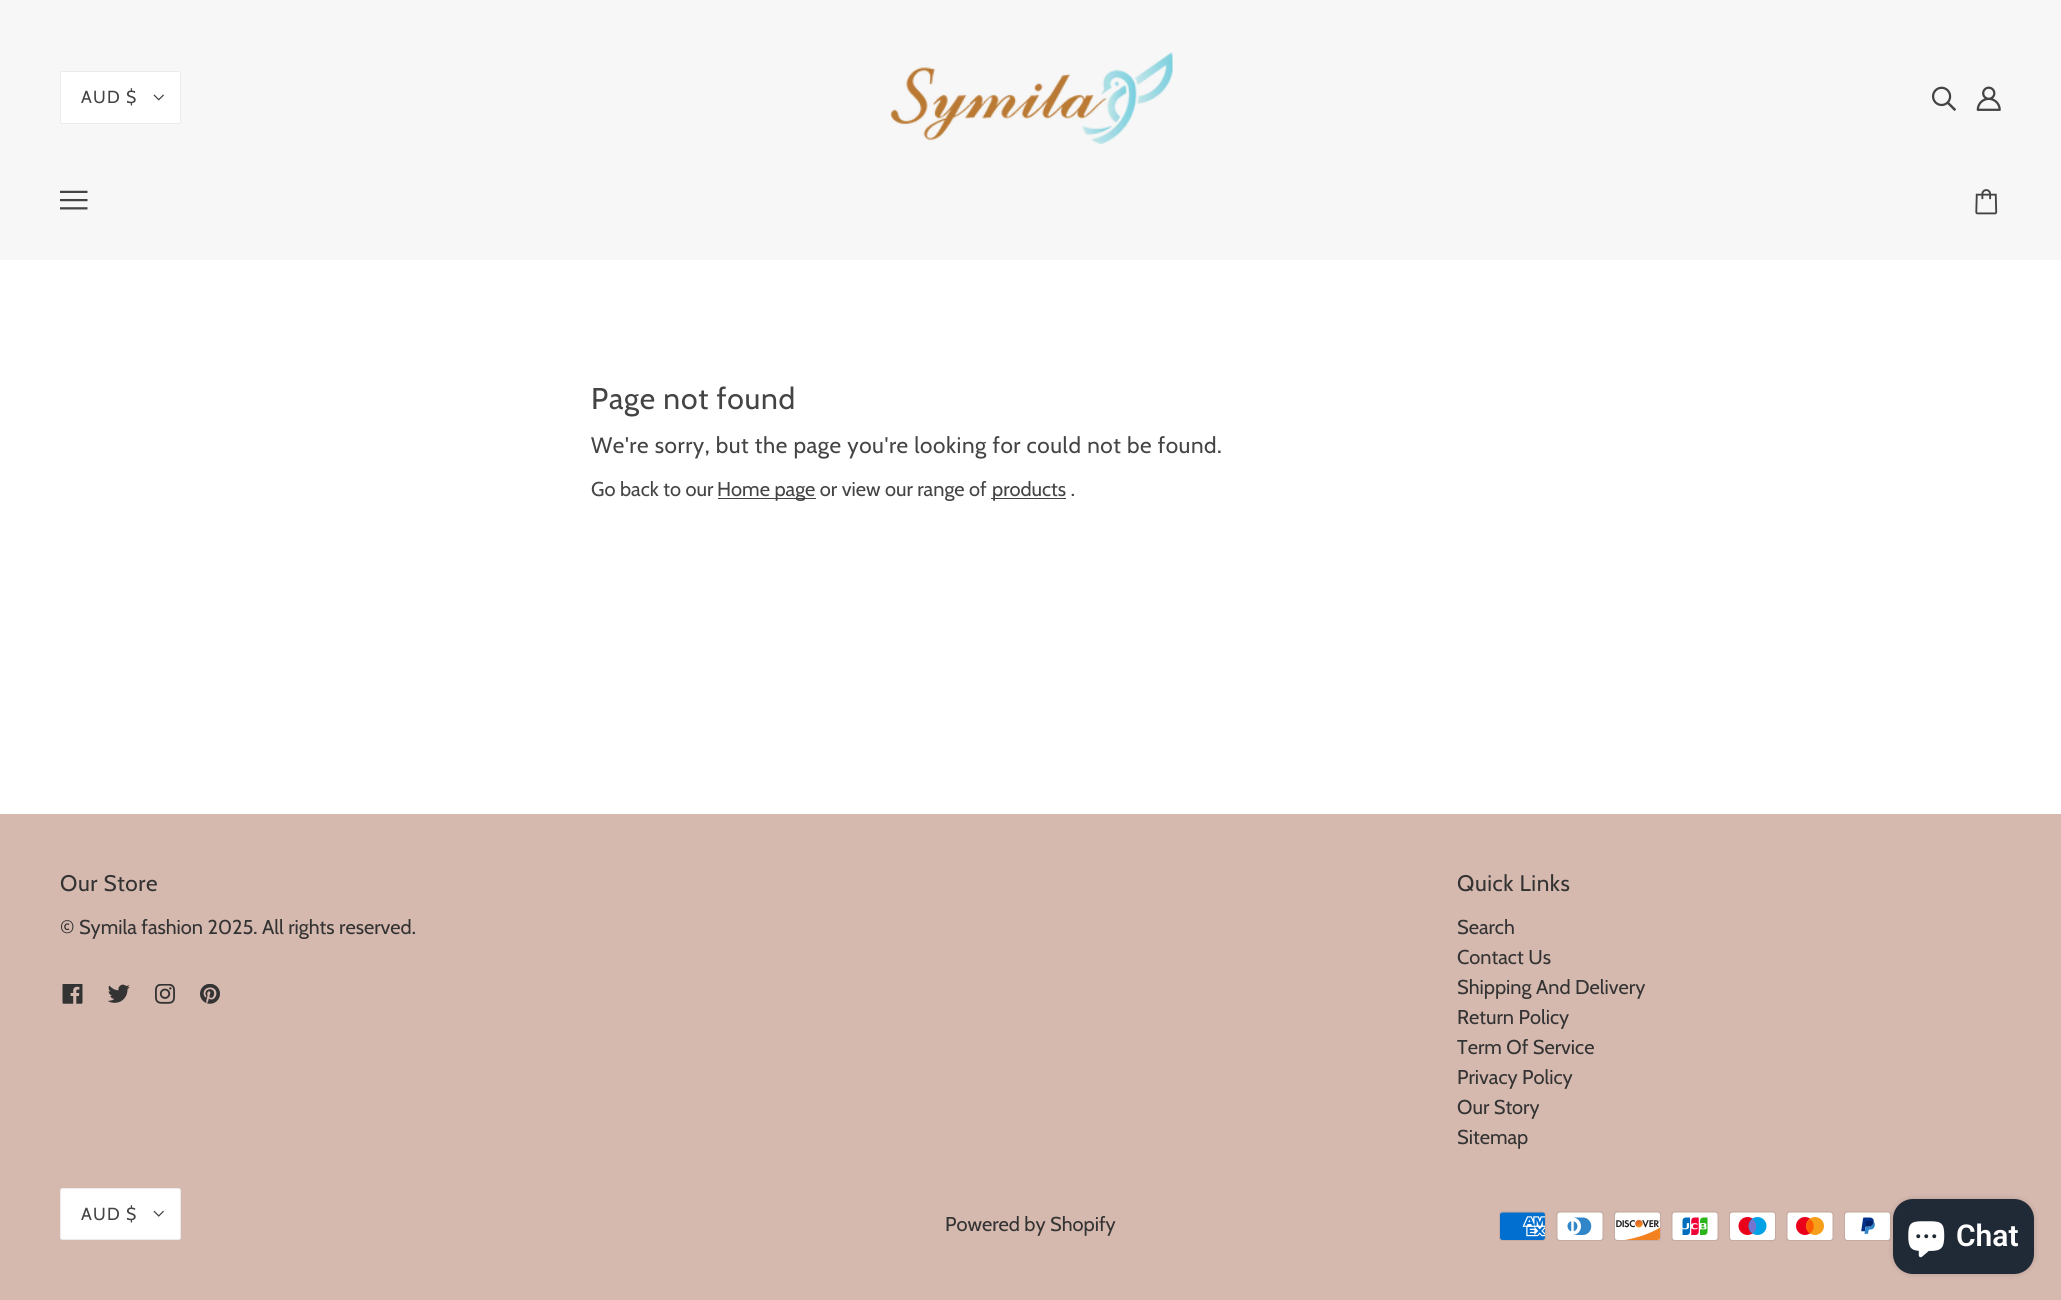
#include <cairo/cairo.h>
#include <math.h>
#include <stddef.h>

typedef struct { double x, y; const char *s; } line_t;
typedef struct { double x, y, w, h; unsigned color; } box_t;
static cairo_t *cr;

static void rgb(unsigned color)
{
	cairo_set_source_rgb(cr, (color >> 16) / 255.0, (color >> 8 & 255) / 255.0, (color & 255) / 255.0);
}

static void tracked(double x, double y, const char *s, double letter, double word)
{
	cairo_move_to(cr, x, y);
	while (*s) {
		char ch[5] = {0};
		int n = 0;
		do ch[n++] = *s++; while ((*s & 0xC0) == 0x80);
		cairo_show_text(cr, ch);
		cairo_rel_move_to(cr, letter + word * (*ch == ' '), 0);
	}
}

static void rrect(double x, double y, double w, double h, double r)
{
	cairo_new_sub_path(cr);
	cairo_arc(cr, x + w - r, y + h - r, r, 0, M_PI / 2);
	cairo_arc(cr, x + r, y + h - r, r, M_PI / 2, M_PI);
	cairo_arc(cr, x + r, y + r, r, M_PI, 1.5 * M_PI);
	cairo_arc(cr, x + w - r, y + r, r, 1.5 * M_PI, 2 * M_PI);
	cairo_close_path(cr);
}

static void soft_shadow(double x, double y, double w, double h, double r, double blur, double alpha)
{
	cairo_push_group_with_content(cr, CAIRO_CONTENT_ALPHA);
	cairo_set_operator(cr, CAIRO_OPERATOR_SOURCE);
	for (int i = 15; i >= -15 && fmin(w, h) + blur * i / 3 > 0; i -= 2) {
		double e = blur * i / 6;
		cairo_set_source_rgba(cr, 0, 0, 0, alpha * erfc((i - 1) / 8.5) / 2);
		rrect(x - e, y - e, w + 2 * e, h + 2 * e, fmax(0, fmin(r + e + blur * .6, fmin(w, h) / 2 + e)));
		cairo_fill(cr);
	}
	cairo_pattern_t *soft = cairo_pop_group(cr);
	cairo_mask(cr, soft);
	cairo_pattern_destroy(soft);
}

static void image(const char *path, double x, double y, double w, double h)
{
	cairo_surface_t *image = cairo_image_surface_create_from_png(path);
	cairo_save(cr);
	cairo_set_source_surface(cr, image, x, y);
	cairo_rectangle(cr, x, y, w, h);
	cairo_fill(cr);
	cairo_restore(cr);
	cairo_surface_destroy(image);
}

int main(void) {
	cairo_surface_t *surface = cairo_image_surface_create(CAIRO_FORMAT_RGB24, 2061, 1300);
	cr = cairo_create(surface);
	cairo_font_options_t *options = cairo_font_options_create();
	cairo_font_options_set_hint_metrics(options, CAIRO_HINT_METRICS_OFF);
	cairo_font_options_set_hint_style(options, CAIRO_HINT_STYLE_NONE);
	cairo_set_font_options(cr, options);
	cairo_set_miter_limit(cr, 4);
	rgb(0xffffff);
	cairo_paint(cr);
	rgb(0xf7f7f7);
	cairo_rectangle(cr, 0, 0, 2061, 260);
	cairo_fill(cr);
	rgb(0xffffff);
	rrect(60.5, 71.5, 120, 52, 2);
	cairo_fill_preserve(cr);
	rgb(0xebebeb);
	cairo_set_line_width(cr, 1);
	cairo_stroke(cr);
	image("img/1.png", 153, 94, 11, 7);
	image("img/2.png", 890, 52, 283, 92);
	image("img/3.png", 1931, 86, 25, 25);
	image("img/4.png", 1976, 86, 25, 25);
	image("img/5.png", 60, 190, 28, 20);
	image("img/6.png", 1975, 189, 23, 26);
	{
		static const box_t items[] = {
			{718, 498, 98, 1, 0x444444},
			{991, 498, 75, 1, 0x444444},
			{0, 814, 2061, 486, 0xd5b8ae},
		};
		for (size_t i = 0; i < sizeof items / sizeof *items; i++) {
			rgb(items[i].color);
			cairo_rectangle(cr, items[i].x, items[i].y, items[i].w, items[i].h);
			cairo_fill(cr);
		}
	}
	image("img/7.png", 62, 984, 21, 20);
	image("img/8.png", 108, 984, 22, 19);
	image("img/9.png", 155, 984, 20, 20);
	image("img/10.png", 200, 984, 20, 20);
	rgb(0xffffff);
	rrect(60.5, 1188.5, 120, 51, 2);
	cairo_fill_preserve(cr);
	rgb(0xebebeb);
	cairo_stroke(cr);
	image("img/11.png", 153, 1210, 11, 7);
	image("img/12.png", 1499, 1211, 47, 30);
	image("img/13.png", 1556, 1211, 48, 30);
	image("img/14.png", 1614, 1211, 47, 30);
	image("img/15.png", 1671, 1211, 48, 30);
	image("img/16.png", 1729, 1211, 47, 30);
	image("img/17.png", 1786, 1211, 48, 30);
	image("img/18.png", 1844, 1211, 47, 30);
	rgb(0x000000);
	soft_shadow(1893, 1199, 141, 75, 20, 3, 0.15);
	rgb(0x202a36);
	rrect(1893, 1199, 141, 75, 20);
	cairo_fill(cr);
	image("img/19.png", 1908, 1221, 37, 37);
	cairo_select_font_face(cr, "Cabin", CAIRO_FONT_SLANT_NORMAL, CAIRO_FONT_WEIGHT_NORMAL);
	cairo_set_font_size(cr, 17.5);
	rgb(0x444444);
	tracked(81, 103, "AUD $", 1.25, 0);
	cairo_set_font_size(cr, 30);
	tracked(591, 409, "Page not found", 0.75, 0);
	cairo_set_font_size(cr, 22.5);
	tracked(591, 453, "We're sorry, but the page you're looking for could not be found.", 0.55, 0);
	cairo_set_font_size(cr, 20);
	{
		static const line_t items[] = {
			{591, 496, "Go back to our"},
			{717, 496, "Home page or view our range of"},
			{992, 496, "products ."},
		};
		for (size_t i = 0; i < sizeof items / sizeof *items; i++) {
			cairo_move_to(cr, items[i].x, items[i].y);
			cairo_show_text(cr, items[i].s);
		}
	}
	cairo_set_font_size(cr, 22.5);
	rgb(0x333333);
	tracked(60, 891, "Our Store", 0.55, 0);
	cairo_set_font_size(cr, 20);
	cairo_move_to(cr, 60, 934);
	cairo_show_text(cr, "© Symila fashion 2025. All rights reserved.");
	cairo_set_font_size(cr, 22.5);
	tracked(1457, 891, "Quick Links", 0.55, 0);
	cairo_set_font_size(cr, 20);
	{
		static const line_t items[] = {
			{1457, 934, "Search"},
			{1457, 964, "Contact Us"},
			{1457, 994, "Shipping And Delivery"},
			{1457, 1024, "Return Policy"},
			{1457, 1054, "Term Of Service"},
			{1457, 1084, "Privacy Policy"},
			{1457, 1114, "Our Story"},
			{1457, 1144, "Sitemap"},
		};
		for (size_t i = 0; i < sizeof items / sizeof *items; i++) {
			cairo_move_to(cr, items[i].x, items[i].y);
			cairo_show_text(cr, items[i].s);
		}
	}
	cairo_set_font_size(cr, 17.5);
	rgb(0x444444);
	tracked(81, 1220, "AUD $", 1.25, 0);
	cairo_set_font_size(cr, 20);
	rgb(0x333333);
	cairo_move_to(cr, 945, 1231);
	cairo_show_text(cr, "Powered by Shopify");
	cairo_select_font_face(cr, "Roboto SemiBold", CAIRO_FONT_SLANT_NORMAL, CAIRO_FONT_WEIGHT_NORMAL);
	cairo_set_font_size(cr, 30);
	rgb(0xffffff);
	cairo_move_to(cr, 1956, 1246);
	cairo_show_text(cr, "Chat");
	cairo_surface_write_to_png(surface, "page.png");
	cairo_font_options_destroy(options);
	cairo_destroy(cr);
	cairo_surface_destroy(surface);
	return 0;
}
